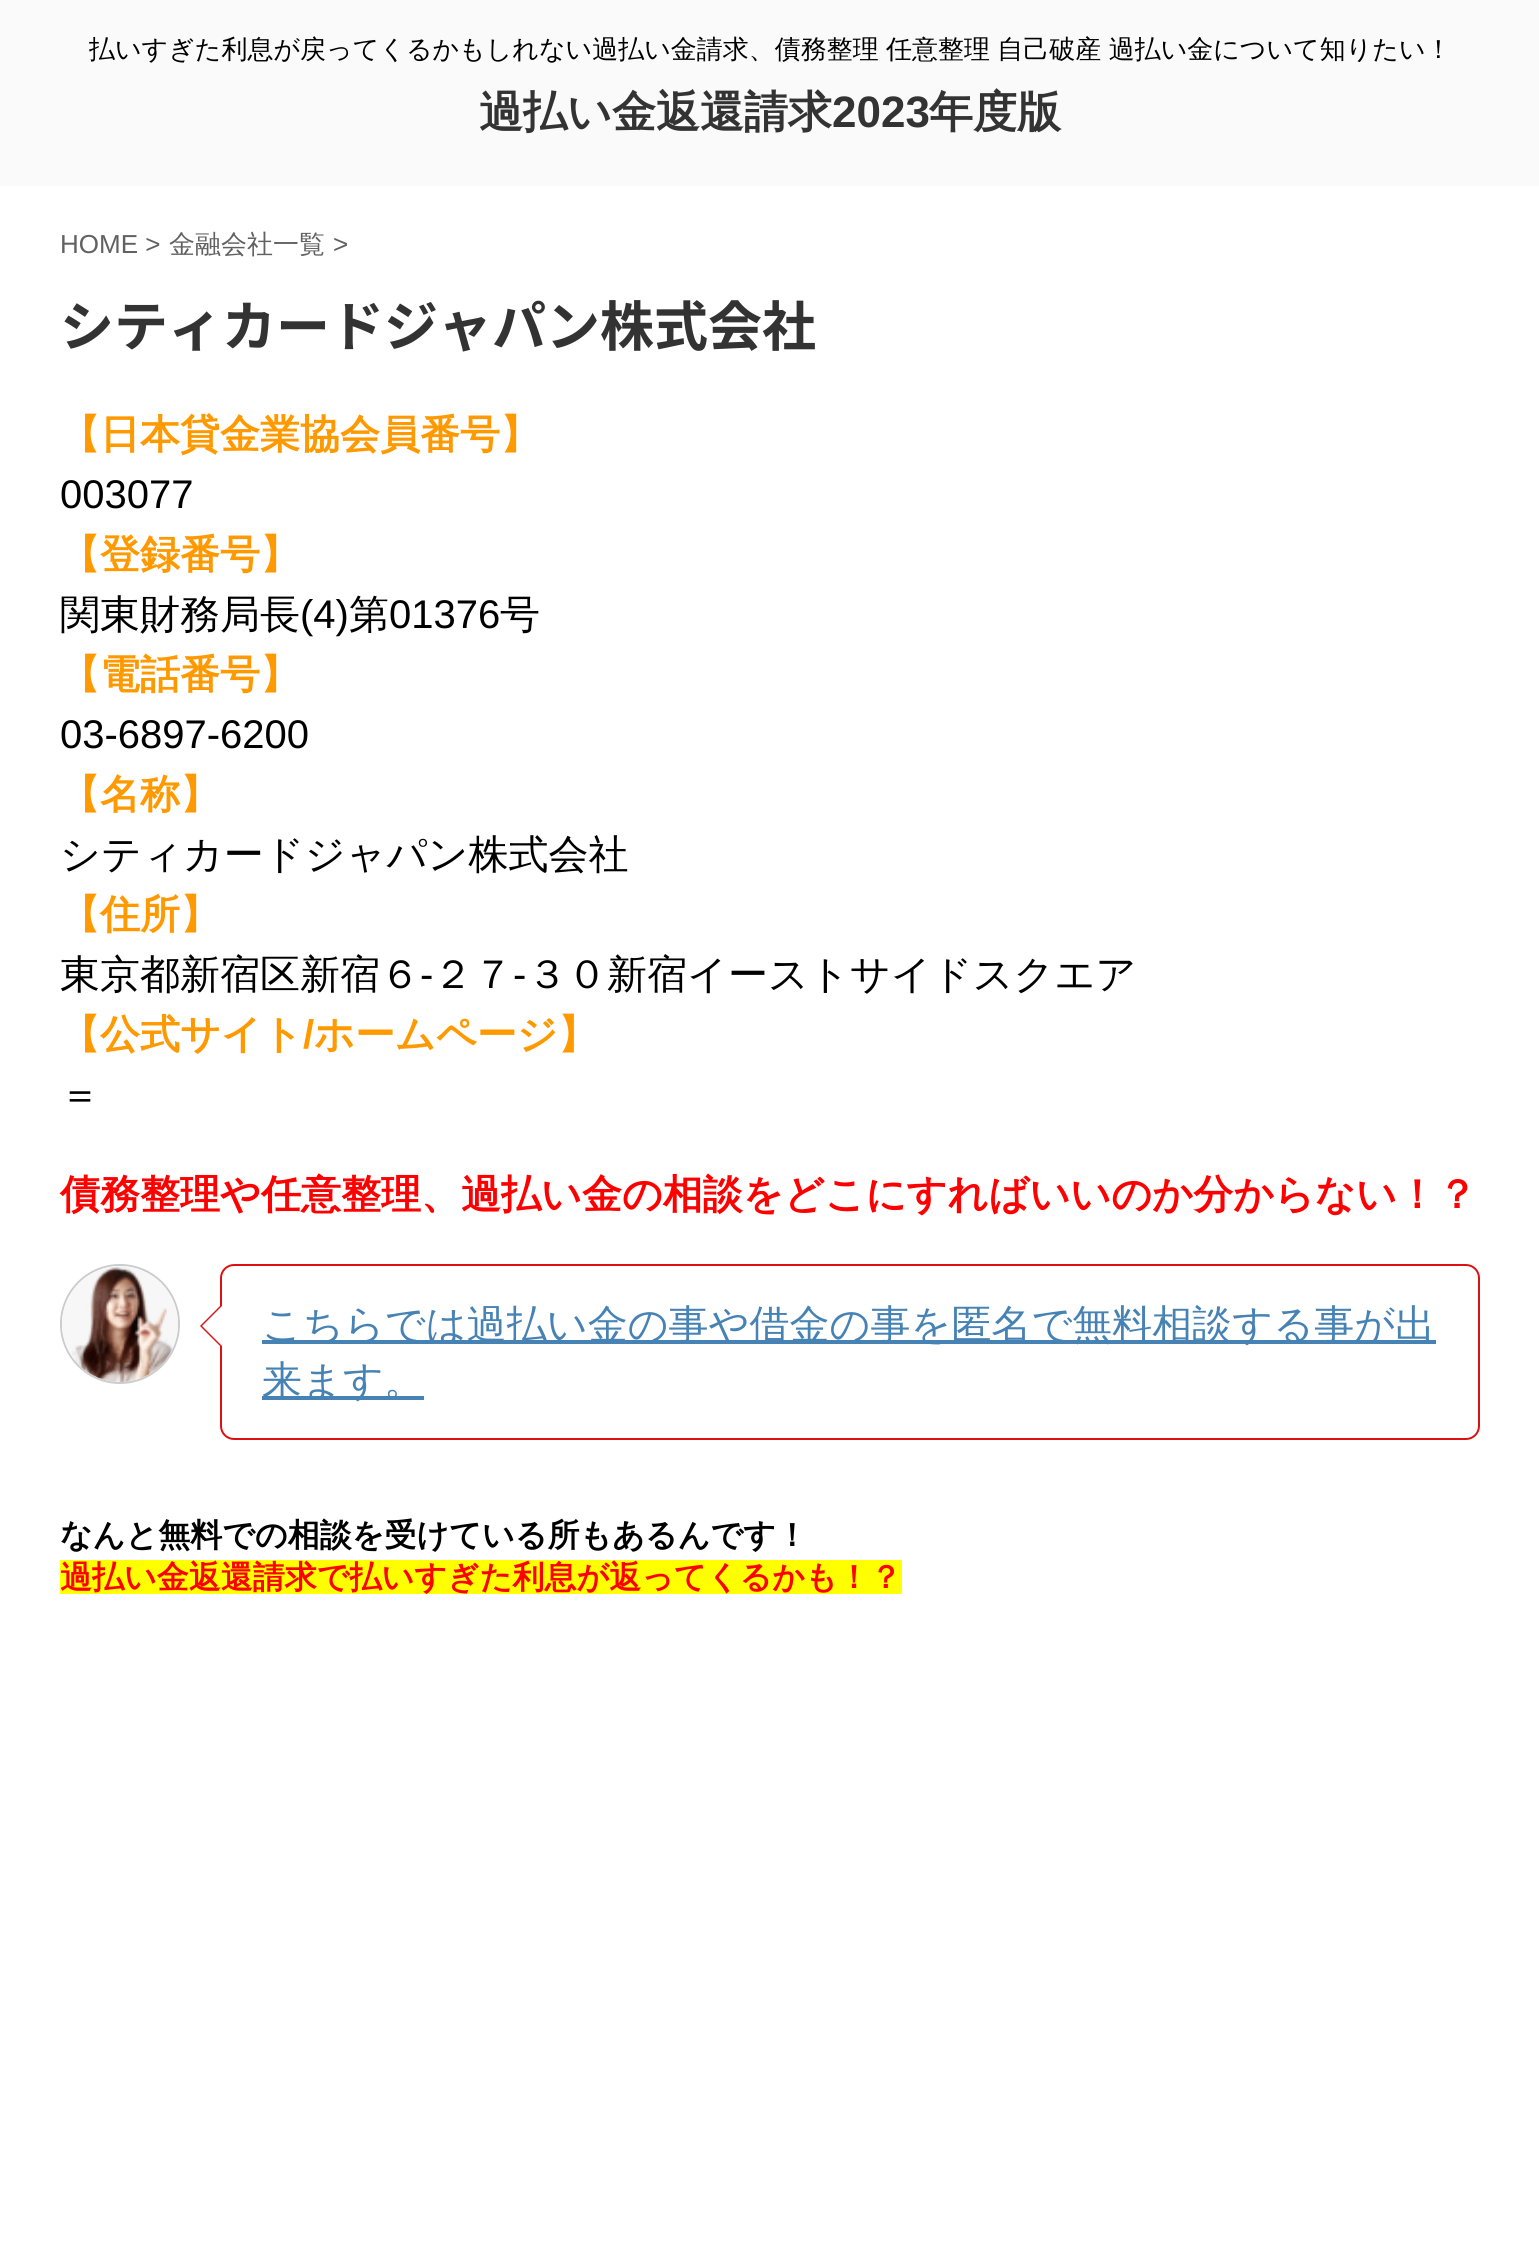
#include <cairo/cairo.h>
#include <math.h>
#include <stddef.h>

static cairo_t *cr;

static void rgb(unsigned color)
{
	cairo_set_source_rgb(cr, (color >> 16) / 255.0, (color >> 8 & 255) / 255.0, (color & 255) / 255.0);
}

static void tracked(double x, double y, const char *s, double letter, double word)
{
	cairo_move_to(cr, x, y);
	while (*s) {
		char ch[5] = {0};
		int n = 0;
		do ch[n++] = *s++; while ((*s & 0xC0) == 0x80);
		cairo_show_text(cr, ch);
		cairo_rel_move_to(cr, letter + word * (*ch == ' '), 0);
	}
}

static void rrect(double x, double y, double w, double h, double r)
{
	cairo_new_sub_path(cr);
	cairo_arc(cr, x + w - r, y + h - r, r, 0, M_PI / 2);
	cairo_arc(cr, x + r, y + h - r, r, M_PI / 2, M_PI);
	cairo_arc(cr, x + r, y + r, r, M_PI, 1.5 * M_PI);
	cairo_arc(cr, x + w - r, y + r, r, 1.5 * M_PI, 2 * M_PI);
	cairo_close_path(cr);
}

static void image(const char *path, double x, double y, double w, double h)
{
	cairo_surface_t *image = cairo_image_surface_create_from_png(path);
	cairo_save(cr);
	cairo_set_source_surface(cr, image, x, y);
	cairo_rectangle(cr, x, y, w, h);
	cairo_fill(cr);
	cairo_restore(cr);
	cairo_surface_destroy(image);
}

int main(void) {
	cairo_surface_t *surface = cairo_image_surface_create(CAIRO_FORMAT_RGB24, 1539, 2257);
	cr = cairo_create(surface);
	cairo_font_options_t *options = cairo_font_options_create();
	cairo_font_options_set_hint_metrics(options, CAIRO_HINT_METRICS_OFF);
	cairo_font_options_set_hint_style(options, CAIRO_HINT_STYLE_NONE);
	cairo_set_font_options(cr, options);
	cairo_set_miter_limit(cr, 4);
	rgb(0xfafafa);
	cairo_paint(cr);
	rgb(0xffffff);
	cairo_rectangle(cr, 0, 186, 1539, 2071);
	cairo_fill(cr);
	cairo_arc(cr, 120, 1324, 59, 0, 2 * M_PI);
	rgb(0xcccccc);
	cairo_stroke(cr);
	image("img/1.png", 62, 1266, 116, 116);
	rrect(221, 1265, 1258, 174, 13);
	rgb(0xdd1111);
	cairo_stroke(cr);
	cairo_new_path(cr);
	cairo_move_to(cr, 222, 1304);
	cairo_line_to(cr, 222, 1348);
	cairo_line_to(cr, 200, 1326);
	cairo_close_path(cr);
	cairo_fill(cr);
	rgb(0x4682b4);
	cairo_rectangle(cr, 262, 1340, 1174, 4);
	cairo_fill(cr);
	rgb(0xffffff);
	cairo_new_path(cr);
	cairo_move_to(cr, 222, 1306);
	cairo_line_to(cr, 222, 1346);
	cairo_line_to(cr, 202, 1326);
	cairo_close_path(cr);
	cairo_fill(cr);
	rgb(0x4682b4);
	cairo_rectangle(cr, 262, 1396, 162, 4);
	cairo_fill(cr);
	rgb(0xffff00);
	cairo_rectangle(cr, 60, 1560, 842, 34);
	cairo_fill(cr);
	cairo_select_font_face(cr, "WenQuanYi Zen Hei Medium", CAIRO_FONT_SLANT_NORMAL, CAIRO_FONT_WEIGHT_NORMAL);
	cairo_set_font_size(cr, 26);
	rgb(0x000000);
	tracked(89, 58, "払いすぎた利息が戻ってくるかもしれない過払い金請求、債務整理 任意整理 自己破産 過払い金について知りたい！", 0, -0.5);
	cairo_select_font_face(cr, "WenQuanYi Zen Hei", CAIRO_FONT_SLANT_NORMAL, CAIRO_FONT_WEIGHT_BOLD);
	cairo_set_font_size(cr, 44);
	rgb(0x333333);
	cairo_move_to(cr, 479, 127);
	cairo_show_text(cr, "過払い金返還請求");
	cairo_select_font_face(cr, "Liberation Sans", CAIRO_FONT_SLANT_NORMAL, CAIRO_FONT_WEIGHT_BOLD);
	cairo_move_to(cr, 832, 127);
	cairo_show_text(cr, "2023");
	cairo_select_font_face(cr, "WenQuanYi Zen Hei", CAIRO_FONT_SLANT_NORMAL, CAIRO_FONT_WEIGHT_BOLD);
	cairo_move_to(cr, 929, 127);
	cairo_show_text(cr, "年度版");
	cairo_select_font_face(cr, "Liberation Sans", CAIRO_FONT_SLANT_NORMAL, CAIRO_FONT_WEIGHT_NORMAL);
	cairo_set_font_size(cr, 26);
	rgb(0x616161);
	cairo_move_to(cr, 60, 253);
	cairo_show_text(cr, "HOME >");
	cairo_select_font_face(cr, "WenQuanYi Zen Hei Medium", CAIRO_FONT_SLANT_NORMAL, CAIRO_FONT_WEIGHT_NORMAL);
	cairo_move_to(cr, 169, 253);
	cairo_show_text(cr, "金融会社一覧");
	cairo_select_font_face(cr, "Liberation Sans", CAIRO_FONT_SLANT_NORMAL, CAIRO_FONT_WEIGHT_NORMAL);
	cairo_move_to(cr, 333, 253);
	cairo_show_text(cr, ">");
	cairo_select_font_face(cr, "Noto Sans JP", CAIRO_FONT_SLANT_NORMAL, CAIRO_FONT_WEIGHT_BOLD);
	cairo_set_font_size(cr, 54);
	rgb(0x333333);
	cairo_move_to(cr, 60, 346);
	cairo_show_text(cr, "シティカードジャパン株式会社");
	cairo_select_font_face(cr, "WenQuanYi Zen Hei", CAIRO_FONT_SLANT_NORMAL, CAIRO_FONT_WEIGHT_BOLD);
	cairo_set_font_size(cr, 40);
	rgb(0xff9900);
	cairo_move_to(cr, 60, 448);
	cairo_show_text(cr, "【日本貸金業協会員番号】");
	cairo_select_font_face(cr, "Liberation Sans", CAIRO_FONT_SLANT_NORMAL, CAIRO_FONT_WEIGHT_NORMAL);
	rgb(0x000000);
	cairo_move_to(cr, 60, 508);
	cairo_show_text(cr, "003077");
	cairo_select_font_face(cr, "WenQuanYi Zen Hei", CAIRO_FONT_SLANT_NORMAL, CAIRO_FONT_WEIGHT_BOLD);
	rgb(0xff9900);
	cairo_move_to(cr, 60, 568);
	cairo_show_text(cr, "【登録番号】");
	cairo_select_font_face(cr, "WenQuanYi Zen Hei Medium", CAIRO_FONT_SLANT_NORMAL, CAIRO_FONT_WEIGHT_NORMAL);
	rgb(0x000000);
	cairo_move_to(cr, 60, 628);
	cairo_show_text(cr, "関東財務局長");
	cairo_select_font_face(cr, "Liberation Sans", CAIRO_FONT_SLANT_NORMAL, CAIRO_FONT_WEIGHT_NORMAL);
	cairo_move_to(cr, 300, 628);
	cairo_show_text(cr, "(4)");
	cairo_select_font_face(cr, "WenQuanYi Zen Hei Medium", CAIRO_FONT_SLANT_NORMAL, CAIRO_FONT_WEIGHT_NORMAL);
	cairo_move_to(cr, 349, 628);
	cairo_show_text(cr, "第");
	cairo_select_font_face(cr, "Liberation Sans", CAIRO_FONT_SLANT_NORMAL, CAIRO_FONT_WEIGHT_NORMAL);
	cairo_move_to(cr, 389, 628);
	cairo_show_text(cr, "01376");
	cairo_select_font_face(cr, "WenQuanYi Zen Hei Medium", CAIRO_FONT_SLANT_NORMAL, CAIRO_FONT_WEIGHT_NORMAL);
	cairo_move_to(cr, 500, 628);
	cairo_show_text(cr, "号");
	cairo_select_font_face(cr, "WenQuanYi Zen Hei", CAIRO_FONT_SLANT_NORMAL, CAIRO_FONT_WEIGHT_BOLD);
	rgb(0xff9900);
	cairo_move_to(cr, 60, 688);
	cairo_show_text(cr, "【電話番号】");
	cairo_select_font_face(cr, "Liberation Sans", CAIRO_FONT_SLANT_NORMAL, CAIRO_FONT_WEIGHT_NORMAL);
	rgb(0x000000);
	cairo_move_to(cr, 60, 748);
	cairo_show_text(cr, "03-6897-6200");
	cairo_select_font_face(cr, "WenQuanYi Zen Hei", CAIRO_FONT_SLANT_NORMAL, CAIRO_FONT_WEIGHT_BOLD);
	rgb(0xff9900);
	cairo_move_to(cr, 60, 808);
	cairo_show_text(cr, "【名称】");
	cairo_select_font_face(cr, "WenQuanYi Zen Hei Medium", CAIRO_FONT_SLANT_NORMAL, CAIRO_FONT_WEIGHT_NORMAL);
	rgb(0x000000);
	cairo_move_to(cr, 60, 868);
	cairo_show_text(cr, "シティカードジャパン株式会社");
	cairo_select_font_face(cr, "WenQuanYi Zen Hei", CAIRO_FONT_SLANT_NORMAL, CAIRO_FONT_WEIGHT_BOLD);
	rgb(0xff9900);
	cairo_move_to(cr, 60, 928);
	cairo_show_text(cr, "【住所】");
	cairo_select_font_face(cr, "WenQuanYi Zen Hei Medium", CAIRO_FONT_SLANT_NORMAL, CAIRO_FONT_WEIGHT_NORMAL);
	rgb(0x000000);
	cairo_move_to(cr, 60, 988);
	cairo_show_text(cr, "東京都新宿区新宿６");
	cairo_select_font_face(cr, "Liberation Sans", CAIRO_FONT_SLANT_NORMAL, CAIRO_FONT_WEIGHT_NORMAL);
	cairo_move_to(cr, 420, 988);
	cairo_show_text(cr, "-");
	cairo_select_font_face(cr, "WenQuanYi Zen Hei Medium", CAIRO_FONT_SLANT_NORMAL, CAIRO_FONT_WEIGHT_NORMAL);
	cairo_move_to(cr, 433, 988);
	cairo_show_text(cr, "２７");
	cairo_select_font_face(cr, "Liberation Sans", CAIRO_FONT_SLANT_NORMAL, CAIRO_FONT_WEIGHT_NORMAL);
	cairo_move_to(cr, 513, 988);
	cairo_show_text(cr, "-");
	cairo_select_font_face(cr, "WenQuanYi Zen Hei Medium", CAIRO_FONT_SLANT_NORMAL, CAIRO_FONT_WEIGHT_NORMAL);
	cairo_move_to(cr, 527, 988);
	cairo_show_text(cr, "３０新宿イーストサイドスクエア");
	cairo_select_font_face(cr, "WenQuanYi Zen Hei", CAIRO_FONT_SLANT_NORMAL, CAIRO_FONT_WEIGHT_BOLD);
	rgb(0xff9900);
	cairo_move_to(cr, 60, 1048);
	cairo_show_text(cr, "【公式サイト");
	cairo_select_font_face(cr, "Liberation Sans", CAIRO_FONT_SLANT_NORMAL, CAIRO_FONT_WEIGHT_BOLD);
	cairo_move_to(cr, 303, 1048);
	cairo_show_text(cr, "/");
	cairo_select_font_face(cr, "WenQuanYi Zen Hei", CAIRO_FONT_SLANT_NORMAL, CAIRO_FONT_WEIGHT_BOLD);
	cairo_move_to(cr, 314, 1048);
	cairo_show_text(cr, "ホームページ】");
	cairo_select_font_face(cr, "WenQuanYi Zen Hei Medium", CAIRO_FONT_SLANT_NORMAL, CAIRO_FONT_WEIGHT_NORMAL);
	rgb(0x000000);
	cairo_move_to(cr, 60, 1108);
	cairo_show_text(cr, "＝");
	cairo_select_font_face(cr, "WenQuanYi Zen Hei", CAIRO_FONT_SLANT_NORMAL, CAIRO_FONT_WEIGHT_BOLD);
	rgb(0xff0000);
	cairo_move_to(cr, 60, 1208);
	cairo_show_text(cr, "債務整理や任意整理、過払い金の相談をどこにすればいいのか分からない！？");
	cairo_select_font_face(cr, "WenQuanYi Zen Hei Medium", CAIRO_FONT_SLANT_NORMAL, CAIRO_FONT_WEIGHT_NORMAL);
	rgb(0x4682b4);
	cairo_move_to(cr, 262, 1338);
	cairo_show_text(cr, "こちらでは過払い金の事や借金の事を匿名で無料相談する事が出");
	cairo_move_to(cr, 262, 1394);
	cairo_show_text(cr, "来ます。");
	cairo_select_font_face(cr, "WenQuanYi Zen Hei", CAIRO_FONT_SLANT_NORMAL, CAIRO_FONT_WEIGHT_BOLD);
	cairo_set_font_size(cr, 32);
	rgb(0x000000);
	cairo_move_to(cr, 60, 1546);
	cairo_show_text(cr, "なんと無料での相談を受けている所もあるんです！");
	rgb(0xff0000);
	cairo_move_to(cr, 60, 1588);
	cairo_show_text(cr, "過払い金返還請求で払いすぎた利息が返ってくるかも！？");
	cairo_surface_write_to_png(surface, "page.png");
	cairo_font_options_destroy(options);
	cairo_destroy(cr);
	cairo_surface_destroy(surface);
	return 0;
}
